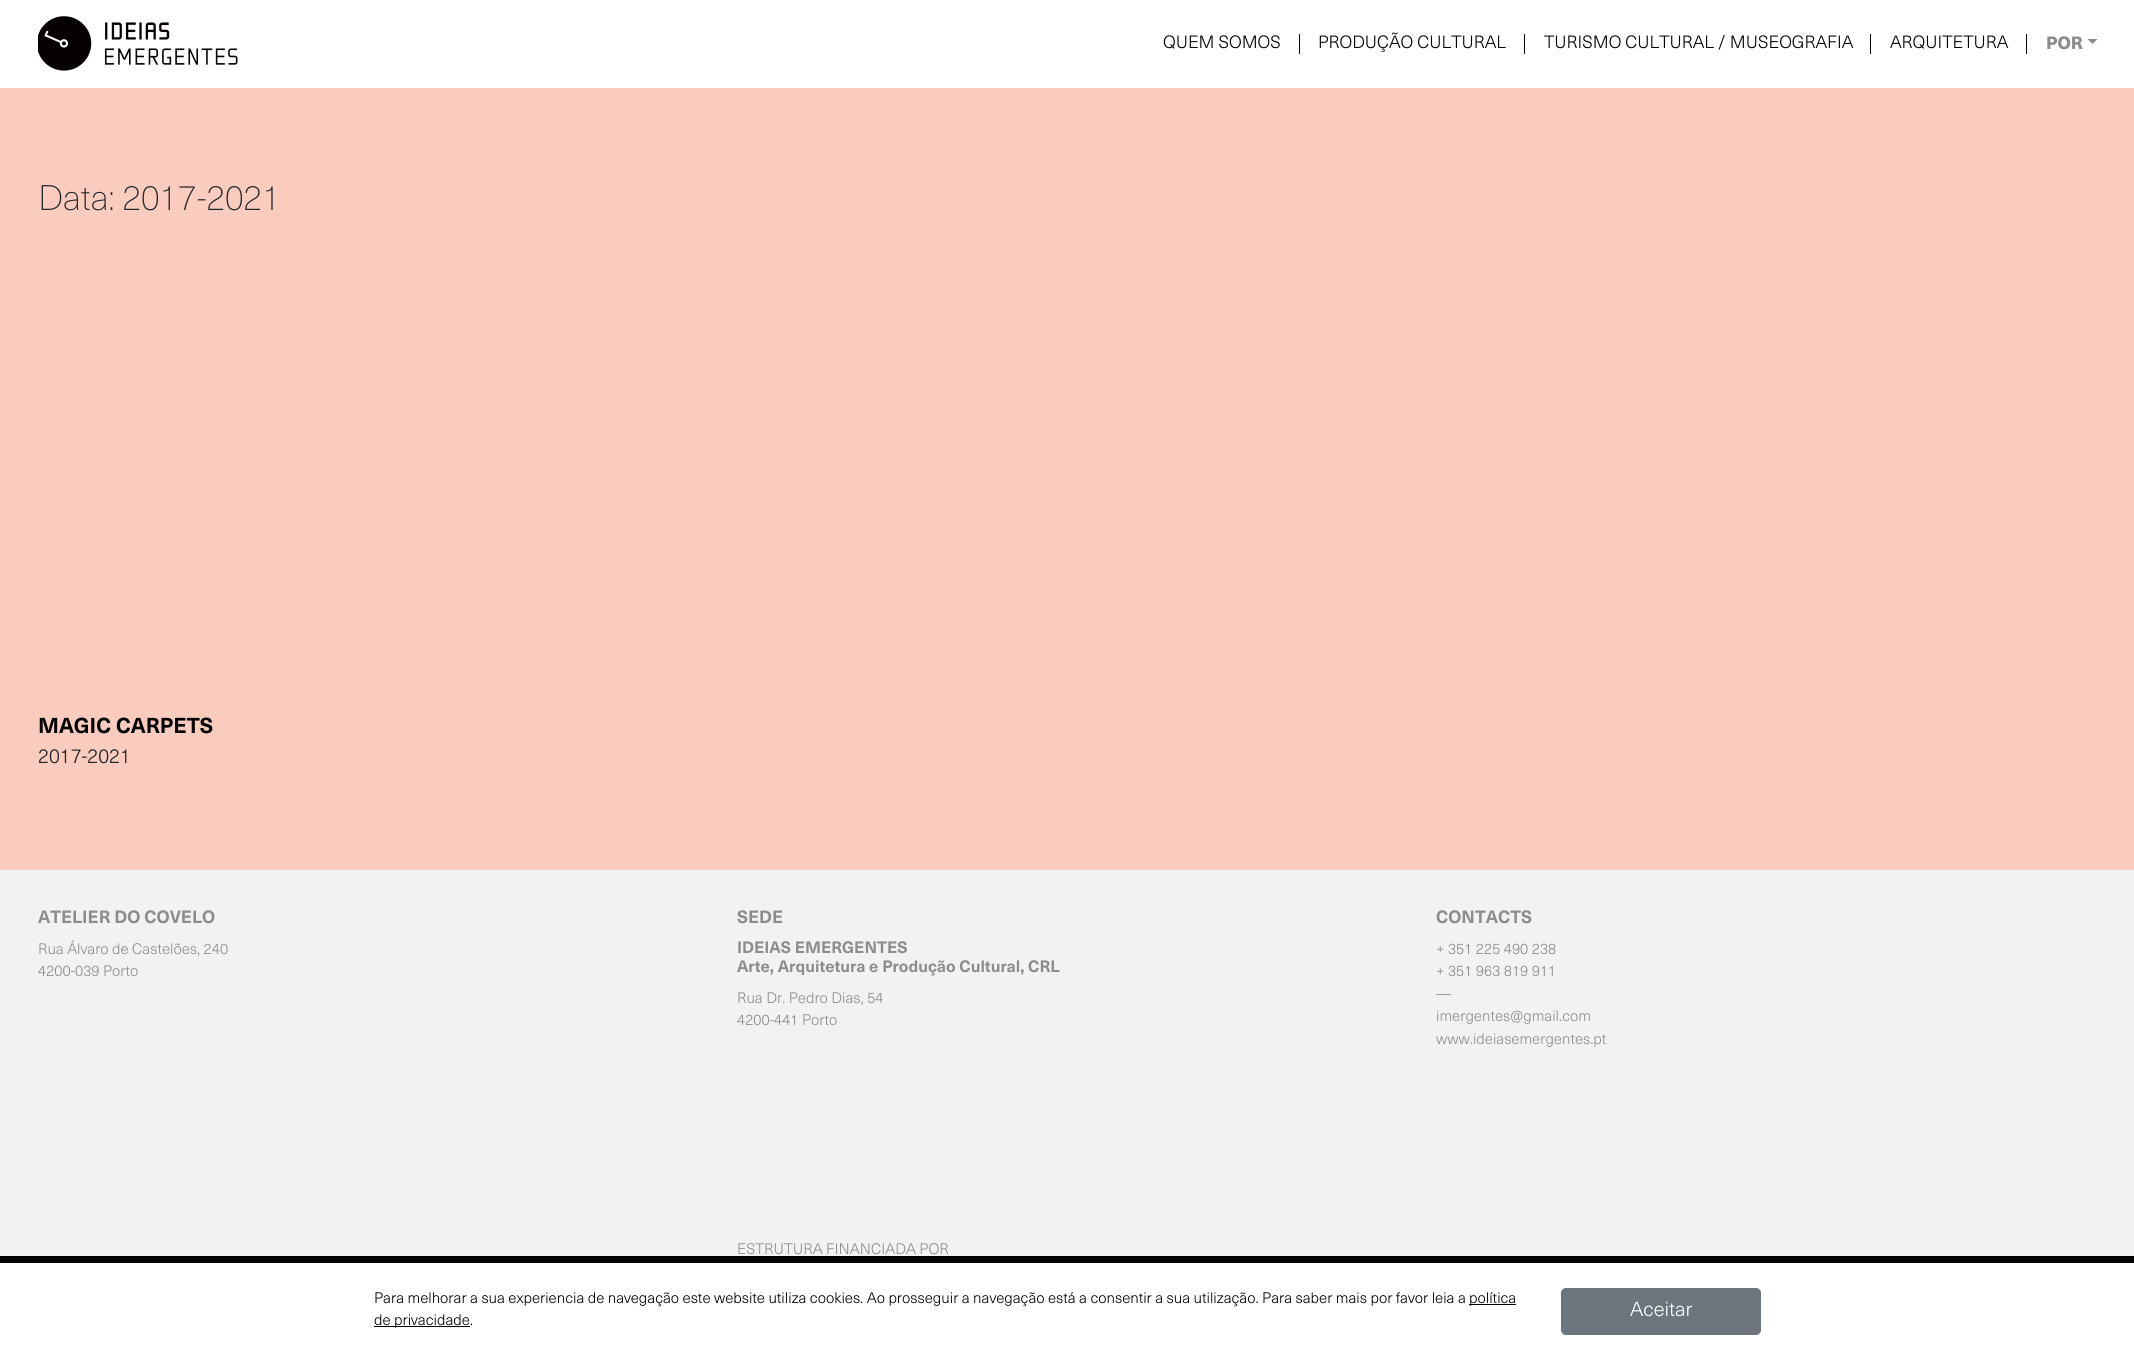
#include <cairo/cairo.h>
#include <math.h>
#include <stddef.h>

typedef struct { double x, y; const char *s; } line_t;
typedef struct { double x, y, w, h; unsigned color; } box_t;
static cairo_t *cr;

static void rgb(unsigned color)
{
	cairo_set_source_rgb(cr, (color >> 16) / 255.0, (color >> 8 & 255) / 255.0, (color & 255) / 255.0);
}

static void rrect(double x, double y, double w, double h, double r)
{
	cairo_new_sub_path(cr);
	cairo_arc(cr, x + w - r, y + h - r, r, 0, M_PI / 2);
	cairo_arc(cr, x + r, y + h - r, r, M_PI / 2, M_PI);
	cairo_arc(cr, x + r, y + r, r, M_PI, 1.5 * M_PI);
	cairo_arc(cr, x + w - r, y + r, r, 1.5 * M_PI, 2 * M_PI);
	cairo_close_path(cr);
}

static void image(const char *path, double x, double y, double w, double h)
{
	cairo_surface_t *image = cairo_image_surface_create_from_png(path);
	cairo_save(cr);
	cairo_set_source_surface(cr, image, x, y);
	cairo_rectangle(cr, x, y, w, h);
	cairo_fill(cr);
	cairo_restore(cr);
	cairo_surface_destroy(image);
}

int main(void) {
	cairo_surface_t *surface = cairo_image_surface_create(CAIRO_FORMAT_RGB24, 2134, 1359);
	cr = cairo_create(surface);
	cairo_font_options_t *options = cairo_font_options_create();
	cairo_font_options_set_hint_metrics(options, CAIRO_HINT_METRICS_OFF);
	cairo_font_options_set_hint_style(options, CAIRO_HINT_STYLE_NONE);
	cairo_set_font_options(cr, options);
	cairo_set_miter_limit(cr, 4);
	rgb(0xf9ccbe);
	cairo_paint(cr);
	rgb(0xffffff);
	cairo_rectangle(cr, 0, 0, 2134, 88);
	cairo_fill(cr);
	image("img/1.png", 38, 16, 200, 55);
	{
		static const box_t items[] = {
			{1299, 34, 1, 20, 0x000000},
			{1524, 34, 1, 20, 0x000000},
			{1870, 34, 1, 20, 0x000000},
			{2026, 34, 1, 20, 0x000000},
		};
		for (size_t i = 0; i < sizeof items / sizeof *items; i++) {
			rgb(items[i].color);
			cairo_rectangle(cr, items[i].x, items[i].y, items[i].w, items[i].h);
			cairo_fill(cr);
		}
	}
	rgb(0x8e8c8a);
	cairo_new_path(cr);
	cairo_move_to(cr, 2087.5, 39);
	cairo_line_to(cr, 2097.5, 39);
	cairo_line_to(cr, 2092.5, 44);
	cairo_close_path(cr);
	cairo_fill(cr);
	{
		static const box_t items[] = {
			{0, 870, 2134, 386, 0xf2f2f2},
			{0, 1263, 2134, 96, 0xffffff},
			{0, 1256, 2134, 7, 0x000000},
			{1469, 1304, 47, 1, 0x000000},
			{374, 1326, 96, 1, 0x000000},
		};
		for (size_t i = 0; i < sizeof items / sizeof *items; i++) {
			rgb(items[i].color);
			cairo_rectangle(cr, items[i].x, items[i].y, items[i].w, items[i].h);
			cairo_fill(cr);
		}
	}
	rgb(0x6c757d);
	rrect(1561.5, 1288.5, 199, 46, 4.5);
	cairo_fill_preserve(cr);
	cairo_set_line_width(cr, 1);
	cairo_stroke(cr);
	cairo_select_font_face(cr, "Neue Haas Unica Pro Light", CAIRO_FONT_SLANT_NORMAL, CAIRO_FONT_WEIGHT_NORMAL);
	cairo_set_font_size(cr, 17.5);
	rgb(0x000000);
	{
		static const line_t items[] = {
			{1163, 48, "QUEM SOMOS"},
			{1318, 48, "PRODUÇÃO CULTURAL"},
			{1544, 48, "TURISMO CULTURAL / MUSEOGRAFIA"},
			{1890, 48, "ARQUITETURA"},
		};
		for (size_t i = 0; i < sizeof items / sizeof *items; i++) {
			cairo_move_to(cr, items[i].x, items[i].y);
			cairo_show_text(cr, items[i].s);
		}
	}
	cairo_select_font_face(cr, "Neue Haas Unica Pro Black", CAIRO_FONT_SLANT_NORMAL, CAIRO_FONT_WEIGHT_NORMAL);
	rgb(0x8e8c8a);
	cairo_move_to(cr, 2046, 49);
	cairo_show_text(cr, "POR");
	cairo_select_font_face(cr, "Neue Haas Unica Pro Thin", CAIRO_FONT_SLANT_NORMAL, CAIRO_FONT_WEIGHT_NORMAL);
	cairo_set_font_size(cr, 35);
	rgb(0x212529);
	cairo_move_to(cr, 38, 210);
	cairo_show_text(cr, "Data: 2017-2021");
	cairo_select_font_face(cr, "Neue Haas Unica Pro", CAIRO_FONT_SLANT_NORMAL, CAIRO_FONT_WEIGHT_BOLD);
	cairo_set_font_size(cr, 21.25);
	rgb(0x000000);
	cairo_move_to(cr, 38, 733);
	cairo_show_text(cr, "MAGIC CARPETS");
	cairo_select_font_face(cr, "Neue Haas Unica Pro Light", CAIRO_FONT_SLANT_NORMAL, CAIRO_FONT_WEIGHT_NORMAL);
	cairo_set_font_size(cr, 20);
	rgb(0x212529);
	cairo_move_to(cr, 38, 763);
	cairo_show_text(cr, "2017-2021");
	cairo_select_font_face(cr, "Neue Haas Unica Pro", CAIRO_FONT_SLANT_NORMAL, CAIRO_FONT_WEIGHT_BOLD);
	cairo_set_font_size(cr, 17.5);
	rgb(0x8e8c8a);
	cairo_move_to(cr, 38, 923);
	cairo_show_text(cr, "ATELIER DO COVELO");
	cairo_select_font_face(cr, "Neue Haas Unica Pro Light", CAIRO_FONT_SLANT_NORMAL, CAIRO_FONT_WEIGHT_NORMAL);
	cairo_set_font_size(cr, 15);
	cairo_move_to(cr, 38, 954);
	cairo_show_text(cr, "Rua Álvaro de Castelões, 240");
	cairo_move_to(cr, 38, 976);
	cairo_show_text(cr, "4200-039 Porto");
	cairo_select_font_face(cr, "Neue Haas Unica Pro", CAIRO_FONT_SLANT_NORMAL, CAIRO_FONT_WEIGHT_BOLD);
	cairo_set_font_size(cr, 17.5);
	cairo_move_to(cr, 737, 923);
	cairo_show_text(cr, "SEDE");
	cairo_set_font_size(cr, 16.25);
	cairo_move_to(cr, 737, 953);
	cairo_show_text(cr, "IDEIAS EMERGENTES");
	cairo_move_to(cr, 737, 972);
	cairo_show_text(cr, "Arte, Arquitetura e Produção Cultural, CRL");
	cairo_select_font_face(cr, "Neue Haas Unica Pro Light", CAIRO_FONT_SLANT_NORMAL, CAIRO_FONT_WEIGHT_NORMAL);
	cairo_set_font_size(cr, 15);
	cairo_move_to(cr, 737, 1003);
	cairo_show_text(cr, "Rua Dr. Pedro Dias, 54");
	cairo_move_to(cr, 737, 1025);
	cairo_show_text(cr, "4200-441 Porto");
	cairo_select_font_face(cr, "Neue Haas Unica Pro", CAIRO_FONT_SLANT_NORMAL, CAIRO_FONT_WEIGHT_BOLD);
	cairo_set_font_size(cr, 17.5);
	cairo_move_to(cr, 1436, 923);
	cairo_show_text(cr, "CONTACTS");
	cairo_select_font_face(cr, "Neue Haas Unica Pro Light", CAIRO_FONT_SLANT_NORMAL, CAIRO_FONT_WEIGHT_NORMAL);
	cairo_set_font_size(cr, 15);
	{
		static const line_t items[] = {
			{1436, 954, "+ 351 225 490 238"},
			{1436, 976, "+ 351 963 819 911"},
			{1436, 999, "—"},
			{1436, 1021, "imergentes@gmail.com"},
			{1436, 1044, "www.ideiasemergentes.pt"},
			{737, 1254, "ESTRUTURA FINANCIADA POR"},
		};
		for (size_t i = 0; i < sizeof items / sizeof *items; i++) {
			cairo_move_to(cr, items[i].x, items[i].y);
			cairo_show_text(cr, items[i].s);
		}
	}
	rgb(0x000000);
	{
		static const line_t items[] = {
			{374, 1303, "Para melhorar a sua experiencia de navegação este website utiliza cookies. Ao prosseguir a navegação está a consentir a sua utilização. Para saber mais por favor leia a"},
			{1469, 1303, "política"},
			{374, 1325, "de privacidade."},
		};
		for (size_t i = 0; i < sizeof items / sizeof *items; i++) {
			cairo_move_to(cr, items[i].x, items[i].y);
			cairo_show_text(cr, items[i].s);
		}
	}
	cairo_set_font_size(cr, 20);
	rgb(0xffffff);
	cairo_move_to(cr, 1630, 1316);
	cairo_show_text(cr, "Aceitar");
	cairo_surface_write_to_png(surface, "page.png");
	cairo_font_options_destroy(options);
	cairo_destroy(cr);
	cairo_surface_destroy(surface);
	return 0;
}
